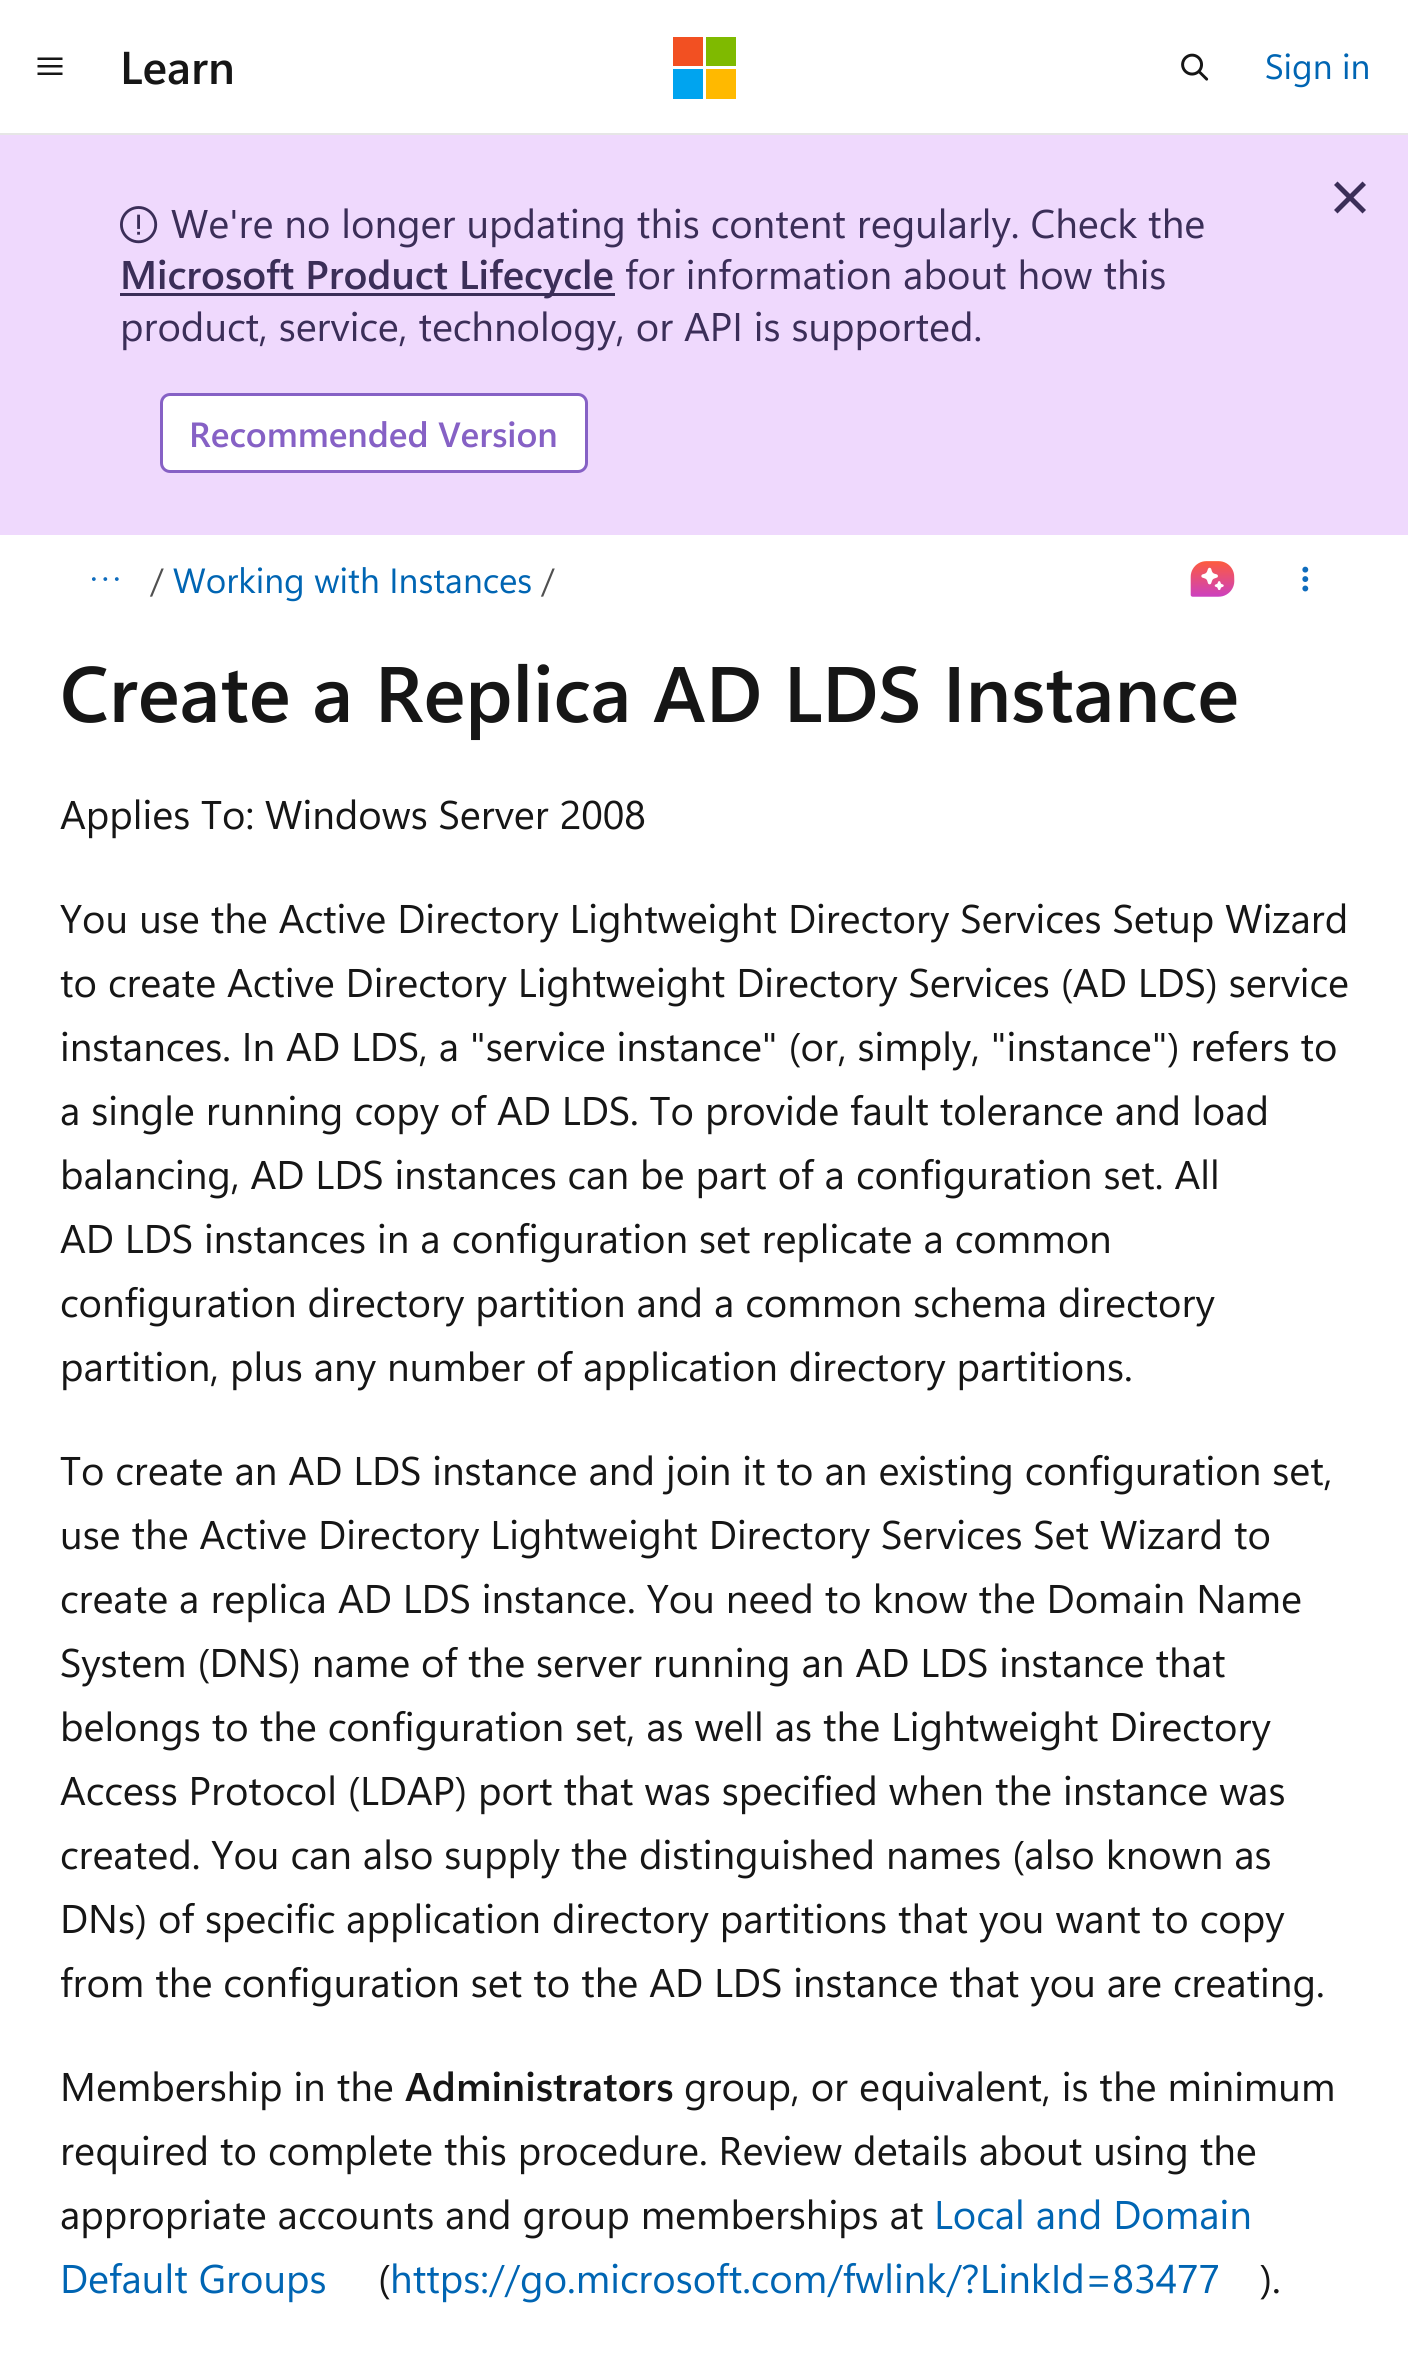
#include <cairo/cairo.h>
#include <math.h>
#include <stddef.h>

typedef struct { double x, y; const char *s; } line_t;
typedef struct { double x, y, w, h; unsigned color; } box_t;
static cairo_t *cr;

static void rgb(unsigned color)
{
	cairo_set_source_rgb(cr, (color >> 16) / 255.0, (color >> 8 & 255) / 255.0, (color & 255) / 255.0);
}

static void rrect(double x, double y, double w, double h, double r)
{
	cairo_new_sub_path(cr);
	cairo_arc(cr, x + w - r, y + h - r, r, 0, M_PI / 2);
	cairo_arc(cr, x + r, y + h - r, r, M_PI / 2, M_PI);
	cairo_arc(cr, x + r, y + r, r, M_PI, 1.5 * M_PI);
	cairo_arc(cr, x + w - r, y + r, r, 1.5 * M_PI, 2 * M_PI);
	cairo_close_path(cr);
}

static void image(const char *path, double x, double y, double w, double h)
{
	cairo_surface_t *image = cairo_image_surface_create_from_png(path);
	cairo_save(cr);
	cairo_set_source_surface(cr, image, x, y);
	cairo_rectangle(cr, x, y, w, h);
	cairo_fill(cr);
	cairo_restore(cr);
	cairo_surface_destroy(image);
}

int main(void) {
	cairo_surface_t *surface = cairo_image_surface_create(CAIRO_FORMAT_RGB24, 1408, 2380);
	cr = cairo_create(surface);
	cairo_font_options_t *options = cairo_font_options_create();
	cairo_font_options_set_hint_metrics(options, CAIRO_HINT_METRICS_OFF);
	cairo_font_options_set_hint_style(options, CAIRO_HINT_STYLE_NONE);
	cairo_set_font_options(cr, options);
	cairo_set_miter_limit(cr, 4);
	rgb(0xffffff);
	cairo_paint(cr);
	rgb(0xe6e6e6);
	cairo_rectangle(cr, 0, 133, 1408, 2);
	cairo_fill(cr);
	image("img/1.png", 37, 57, 26, 18);
	{
		static const box_t items[] = {
			{673, 37, 30, 29, 0xf25022},
			{706, 37, 30, 29, 0x7fba00},
			{673, 69, 30, 30, 0x00a4ef},
			{706, 69, 30, 30, 0xffb900},
		};
		for (size_t i = 0; i < sizeof items / sizeof *items; i++) {
			rgb(items[i].color);
			cairo_rectangle(cr, items[i].x, items[i].y, items[i].w, items[i].h);
			cairo_fill(cr);
		}
	}
	image("img/2.png", 1181, 53, 28, 28);
	rgb(0xefd9fd);
	cairo_rectangle(cr, 0, 135, 1408, 400);
	cairo_fill(cr);
	rgb(0x3b2e58);
	cairo_new_path(cr);
	cairo_move_to(cr, 1337.5, 181.5);
	cairo_line_to(cr, 1366, 210);
	cairo_line_to(cr, 1362.5, 213.5);
	cairo_line_to(cr, 1334, 185);
	cairo_close_path(cr);
	cairo_fill(cr);
	cairo_new_path(cr);
	cairo_move_to(cr, 1362.5, 181.5);
	cairo_line_to(cr, 1366, 185);
	cairo_line_to(cr, 1337.5, 213.5);
	cairo_line_to(cr, 1334, 210);
	cairo_close_path(cr);
	cairo_fill(cr);
	image("img/3.png", 120, 206, 38, 38);
	cairo_rectangle(cr, 120, 293, 495, 3);
	cairo_fill(cr);
	rgb(0xffffff);
	rrect(161.5, 394.5, 425, 77, 8.5);
	cairo_fill_preserve(cr);
	rgb(0x8661c5);
	cairo_set_line_width(cr, 3);
	cairo_stroke(cr);
	image("img/4.png", 92, 577, 27, 4);
	image("img/5.png", 1190, 561, 45, 36);
	image("img/6.png", 1302, 566, 7, 26);
	cairo_select_font_face(cr, "Segoe UI SemiBold", CAIRO_FONT_SLANT_NORMAL, CAIRO_FONT_WEIGHT_NORMAL);
	cairo_set_font_size(cr, 46);
	rgb(0x161616);
	cairo_move_to(cr, 120, 84);
	cairo_show_text(cr, "Learn");
	cairo_select_font_face(cr, "Segoe UI", CAIRO_FONT_SLANT_NORMAL, CAIRO_FONT_WEIGHT_NORMAL);
	cairo_set_font_size(cr, 35);
	rgb(0x0065b3);
	cairo_move_to(cr, 1265, 79);
	cairo_show_text(cr, "Sign in");
	cairo_set_font_size(cr, 40);
	rgb(0x3b2e58);
	cairo_move_to(cr, 171, 238);
	cairo_show_text(cr, "We're no longer updating this content regularly. Check the");
	cairo_select_font_face(cr, "Segoe UI SemiBold", CAIRO_FONT_SLANT_NORMAL, CAIRO_FONT_WEIGHT_NORMAL);
	cairo_move_to(cr, 120, 289);
	cairo_show_text(cr, "Microsoft Product Lifecycle");
	cairo_select_font_face(cr, "Segoe UI", CAIRO_FONT_SLANT_NORMAL, CAIRO_FONT_WEIGHT_NORMAL);
	cairo_move_to(cr, 625, 289);
	cairo_show_text(cr, "for information about how this");
	cairo_move_to(cr, 120, 341);
	cairo_show_text(cr, "product, service, technology, or API is supported.");
	cairo_select_font_face(cr, "Segoe UI SemiBold", CAIRO_FONT_SLANT_NORMAL, CAIRO_FONT_WEIGHT_NORMAL);
	cairo_set_font_size(cr, 35);
	rgb(0x8661c5);
	cairo_move_to(cr, 189, 447);
	cairo_show_text(cr, "Recommended Version");
	cairo_select_font_face(cr, "Segoe UI", CAIRO_FONT_SLANT_NORMAL, CAIRO_FONT_WEIGHT_NORMAL);
	rgb(0x505050);
	cairo_move_to(cr, 150, 593);
	cairo_show_text(cr, "/");
	rgb(0x0065b3);
	cairo_move_to(cr, 173, 593);
	cairo_show_text(cr, "Working with Instances");
	rgb(0x505050);
	cairo_move_to(cr, 541, 593);
	cairo_show_text(cr, "/");
	cairo_select_font_face(cr, "Segoe UI SemiBold", CAIRO_FONT_SLANT_NORMAL, CAIRO_FONT_WEIGHT_NORMAL);
	cairo_set_font_size(cr, 78.5);
	rgb(0x161616);
	cairo_move_to(cr, 60, 722);
	cairo_show_text(cr, "Create a Replica AD LDS Instance");
	cairo_select_font_face(cr, "Segoe UI", CAIRO_FONT_SLANT_NORMAL, CAIRO_FONT_WEIGHT_NORMAL);
	cairo_set_font_size(cr, 40);
	{
		static const line_t items[] = {
			{60, 829, "Applies To: Windows Server 2008"},
			{60, 933, "You use the Active Directory Lightweight Directory Services Setup Wizard"},
			{60, 997, "to create Active Directory Lightweight Directory Services (AD LDS) service"},
			{60, 1061, "instances. In AD LDS, a \"service instance\" (or, simply, \"instance\") refers to"},
			{60, 1125, "a single running copy of AD LDS. To provide fault tolerance and load"},
			{60, 1189, "balancing, AD LDS instances can be part of a configuration set. All"},
			{60, 1253, "AD LDS instances in a configuration set replicate a common"},
			{60, 1317, "configuration directory partition and a common schema directory"},
			{60, 1381, "partition, plus any number of application directory partitions."},
			{60, 1485, "To create an AD LDS instance and join it to an existing configuration set,"},
			{60, 1549, "use the Active Directory Lightweight Directory Services Set Wizard to"},
			{60, 1613, "create a replica AD LDS instance. You need to know the Domain Name"},
			{60, 1677, "System (DNS) name of the server running an AD LDS instance that"},
			{60, 1741, "belongs to the configuration set, as well as the Lightweight Directory"},
			{60, 1805, "Access Protocol (LDAP) port that was specified when the instance was"},
			{60, 1869, "created. You can also supply the distinguished names (also known as"},
			{60, 1933, "DNs) of specific application directory partitions that you want to copy"},
			{60, 1997, "from the configuration set to the AD LDS instance that you are creating."},
			{60, 2101, "Membership in the"},
		};
		for (size_t i = 0; i < sizeof items / sizeof *items; i++) {
			cairo_move_to(cr, items[i].x, items[i].y);
			cairo_show_text(cr, items[i].s);
		}
	}
	cairo_select_font_face(cr, "Segoe UI SemiBold", CAIRO_FONT_SLANT_NORMAL, CAIRO_FONT_WEIGHT_NORMAL);
	cairo_move_to(cr, 405, 2101);
	cairo_show_text(cr, "Administrators");
	cairo_select_font_face(cr, "Segoe UI", CAIRO_FONT_SLANT_NORMAL, CAIRO_FONT_WEIGHT_NORMAL);
	{
		static const line_t items[] = {
			{684, 2101, "group, or equivalent, is the minimum"},
			{60, 2165, "required to complete this procedure. Review details about using the"},
			{60, 2229, "appropriate accounts and group memberships at"},
		};
		for (size_t i = 0; i < sizeof items / sizeof *items; i++) {
			cairo_move_to(cr, items[i].x, items[i].y);
			cairo_show_text(cr, items[i].s);
		}
	}
	rgb(0x0065b3);
	cairo_move_to(cr, 934, 2229);
	cairo_show_text(cr, "Local and Domain");
	cairo_move_to(cr, 60, 2293);
	cairo_show_text(cr, "Default Groups");
	rgb(0x161616);
	cairo_move_to(cr, 378, 2293);
	cairo_show_text(cr, "(");
	rgb(0x0065b3);
	cairo_move_to(cr, 390, 2293);
	cairo_show_text(cr, "https://go.microsoft.com/fwlink/?LinkId=83477");
	rgb(0x161616);
	cairo_move_to(cr, 1260, 2293);
	cairo_show_text(cr, ").");
	cairo_surface_write_to_png(surface, "page.png");
	cairo_font_options_destroy(options);
	cairo_destroy(cr);
	cairo_surface_destroy(surface);
	return 0;
}
